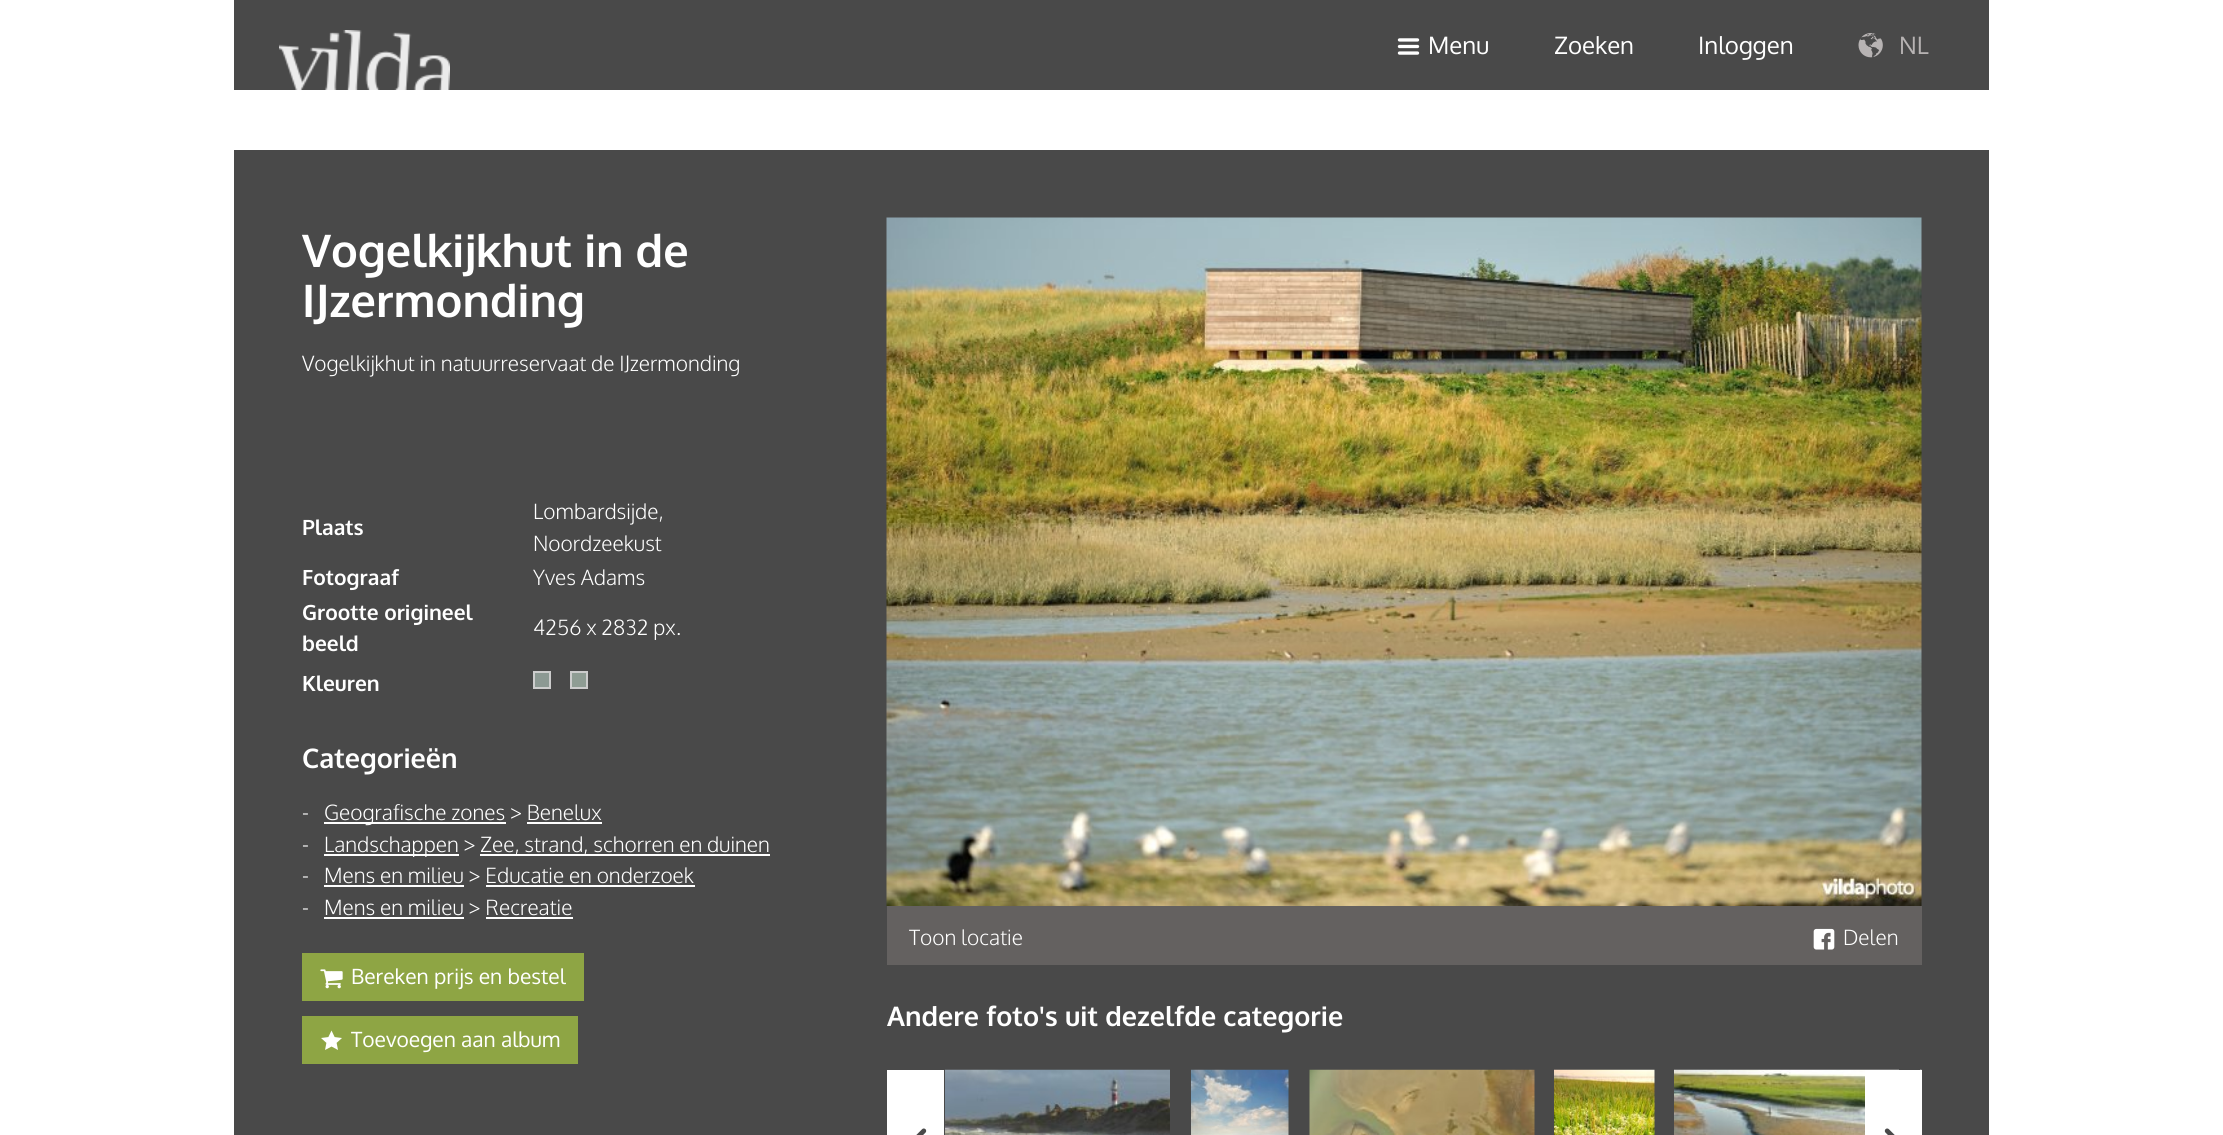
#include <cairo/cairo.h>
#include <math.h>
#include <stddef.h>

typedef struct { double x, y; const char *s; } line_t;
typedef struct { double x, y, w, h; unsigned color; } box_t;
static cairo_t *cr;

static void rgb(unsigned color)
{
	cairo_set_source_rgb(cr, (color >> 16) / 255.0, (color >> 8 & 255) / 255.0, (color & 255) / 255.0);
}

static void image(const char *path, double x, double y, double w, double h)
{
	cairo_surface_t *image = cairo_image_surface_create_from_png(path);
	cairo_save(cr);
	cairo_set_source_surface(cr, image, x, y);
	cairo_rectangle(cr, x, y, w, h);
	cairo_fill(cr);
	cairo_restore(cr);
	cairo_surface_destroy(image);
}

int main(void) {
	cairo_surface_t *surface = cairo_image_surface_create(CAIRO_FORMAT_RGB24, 2223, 1135);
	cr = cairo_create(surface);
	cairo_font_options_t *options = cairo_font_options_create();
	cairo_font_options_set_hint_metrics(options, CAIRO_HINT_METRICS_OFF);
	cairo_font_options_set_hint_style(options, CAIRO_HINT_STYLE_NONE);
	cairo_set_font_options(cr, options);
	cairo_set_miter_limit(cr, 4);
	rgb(0xffffff);
	cairo_paint(cr);
	rgb(0x494949);
	cairo_rectangle(cr, 234, 0, 1755, 90);
	cairo_fill(cr);
	image("img/1.png", 279, 30, 171, 60);
	image("img/2.png", 1397, 38, 23, 17);
	image("img/3.png", 1858, 33, 25, 25);
	cairo_rectangle(cr, 234, 150, 1755, 985);
	cairo_fill(cr);
	rgb(0x8c9993);
	cairo_rectangle(cr, 534, 672, 16, 16);
	cairo_fill_preserve(cr);
	rgb(0xcccccc);
	cairo_stroke(cr);
	rgb(0x8f9d94);
	cairo_rectangle(cr, 571, 672, 16, 16);
	cairo_fill_preserve(cr);
	rgb(0xcccccc);
	cairo_stroke(cr);
	{
		static const box_t items[] = {
			{324, 822, 182, 2, 0xffffff},
			{527, 822, 75, 2, 0xffffff},
			{324, 854, 135, 2, 0xffffff},
			{480, 854, 290, 2, 0xffffff},
			{324, 885, 140, 2, 0xffffff},
			{486, 885, 209, 2, 0xffffff},
			{324, 917, 140, 2, 0xffffff},
			{486, 917, 87, 2, 0xffffff},
			{302, 953, 282, 48, 0x8ea544},
		};
		for (size_t i = 0; i < sizeof items / sizeof *items; i++) {
			rgb(items[i].color);
			cairo_rectangle(cr, items[i].x, items[i].y, items[i].w, items[i].h);
			cairo_fill(cr);
		}
	}
	image("img/4.png", 320, 969, 23, 20);
	cairo_rectangle(cr, 302, 1016, 276, 48);
	cairo_fill(cr);
	image("img/5.png", 321, 1030, 21, 20);
	image("img/6.png", 886, 217, 1036, 689);
	rgb(0x646160);
	cairo_rectangle(cr, 887, 906, 1035, 59);
	cairo_fill(cr);
	image("img/7.png", 1813, 928, 22, 22);
	image("img/8.png", 945, 1069, 225, 66);
	image("img/9.png", 1191, 1069, 98, 66);
	image("img/10.png", 1309, 1069, 226, 66);
	image("img/11.png", 1554, 1069, 101, 66);
	image("img/12.png", 1674, 1069, 225, 66);
	image("img/13.png", 1920, 1069, 2, 1);
	rgb(0xffffff);
	cairo_rectangle(cr, 887, 1070, 57, 65);
	cairo_fill(cr);
	image("img/14.png", 916, 1128, 11, 7);
	cairo_rectangle(cr, 1865, 1070, 57, 65);
	cairo_fill(cr);
	image("img/15.png", 1884, 1128, 11, 7);
	cairo_select_font_face(cr, "Oxygen", CAIRO_FONT_SLANT_NORMAL, CAIRO_FONT_WEIGHT_NORMAL);
	cairo_set_font_size(cr, 24);
	{
		static const line_t items[] = {
			{1428, 54, "Menu"},
			{1554, 54, "Zoeken"},
			{1698, 54, "Inloggen"},
		};
		for (size_t i = 0; i < sizeof items / sizeof *items; i++) {
			cairo_move_to(cr, items[i].x, items[i].y);
			cairo_show_text(cr, items[i].s);
		}
	}
	rgb(0xb7b3b3);
	cairo_move_to(cr, 1899, 54);
	cairo_show_text(cr, "NL");
	cairo_select_font_face(cr, "Oxygen", CAIRO_FONT_SLANT_NORMAL, CAIRO_FONT_WEIGHT_BOLD);
	cairo_set_font_size(cr, 45);
	rgb(0xffffff);
	cairo_move_to(cr, 302, 267);
	cairo_show_text(cr, "Vogelkijkhut in de");
	cairo_move_to(cr, 302, 317);
	cairo_show_text(cr, "IJzermonding");
	cairo_select_font_face(cr, "Oxygen Light", CAIRO_FONT_SLANT_NORMAL, CAIRO_FONT_WEIGHT_NORMAL);
	cairo_set_font_size(cr, 21);
	cairo_move_to(cr, 302, 371);
	cairo_show_text(cr, "Vogelkijkhut in natuurreservaat de IJzermonding");
	cairo_select_font_face(cr, "Oxygen", CAIRO_FONT_SLANT_NORMAL, CAIRO_FONT_WEIGHT_BOLD);
	cairo_move_to(cr, 302, 535);
	cairo_show_text(cr, "Plaats");
	cairo_select_font_face(cr, "Oxygen Light", CAIRO_FONT_SLANT_NORMAL, CAIRO_FONT_WEIGHT_NORMAL);
	cairo_move_to(cr, 533, 519);
	cairo_show_text(cr, "Lombardsijde,");
	cairo_move_to(cr, 533, 551);
	cairo_show_text(cr, "Noordzeekust");
	cairo_select_font_face(cr, "Oxygen", CAIRO_FONT_SLANT_NORMAL, CAIRO_FONT_WEIGHT_BOLD);
	cairo_move_to(cr, 302, 585);
	cairo_show_text(cr, "Fotograaf");
	cairo_select_font_face(cr, "Oxygen Light", CAIRO_FONT_SLANT_NORMAL, CAIRO_FONT_WEIGHT_NORMAL);
	cairo_move_to(cr, 533, 585);
	cairo_show_text(cr, "Yves Adams");
	cairo_select_font_face(cr, "Oxygen", CAIRO_FONT_SLANT_NORMAL, CAIRO_FONT_WEIGHT_BOLD);
	cairo_move_to(cr, 302, 620);
	cairo_show_text(cr, "Grootte origineel");
	cairo_move_to(cr, 302, 651);
	cairo_show_text(cr, "beeld");
	cairo_select_font_face(cr, "Oxygen Light", CAIRO_FONT_SLANT_NORMAL, CAIRO_FONT_WEIGHT_NORMAL);
	cairo_move_to(cr, 533, 635);
	cairo_show_text(cr, "4256 x 2832 px.");
	cairo_select_font_face(cr, "Oxygen", CAIRO_FONT_SLANT_NORMAL, CAIRO_FONT_WEIGHT_BOLD);
	cairo_move_to(cr, 302, 691);
	cairo_show_text(cr, "Kleuren");
	cairo_set_font_size(cr, 27);
	cairo_move_to(cr, 302, 768);
	cairo_show_text(cr, "Categorieën");
	cairo_select_font_face(cr, "Oxygen Light", CAIRO_FONT_SLANT_NORMAL, CAIRO_FONT_WEIGHT_NORMAL);
	cairo_set_font_size(cr, 21);
	{
		static const line_t items[] = {
			{302, 820, "-"},
			{324, 820, "Geografische zones > Benelux"},
			{302, 852, "-"},
			{324, 852, "Landschappen >"},
			{480, 852, "Zee, strand, schorren en duinen"},
			{302, 883, "-"},
			{324, 883, "Mens en milieu > Educatie en onderzoek"},
			{302, 915, "-"},
			{324, 915, "Mens en milieu > Recreatie"},
		};
		for (size_t i = 0; i < sizeof items / sizeof *items; i++) {
			cairo_move_to(cr, items[i].x, items[i].y);
			cairo_show_text(cr, items[i].s);
		}
	}
	cairo_select_font_face(cr, "Oxygen", CAIRO_FONT_SLANT_NORMAL, CAIRO_FONT_WEIGHT_NORMAL);
	cairo_move_to(cr, 351, 984);
	cairo_show_text(cr, "Bereken prijs en bestel");
	cairo_move_to(cr, 351, 1047);
	cairo_show_text(cr, "Toevoegen aan album");
	cairo_select_font_face(cr, "Oxygen Light", CAIRO_FONT_SLANT_NORMAL, CAIRO_FONT_WEIGHT_NORMAL);
	cairo_move_to(cr, 909, 945);
	cairo_show_text(cr, "Toon locatie");
	cairo_move_to(cr, 1843, 945);
	cairo_show_text(cr, "Delen");
	cairo_select_font_face(cr, "Oxygen", CAIRO_FONT_SLANT_NORMAL, CAIRO_FONT_WEIGHT_BOLD);
	cairo_set_font_size(cr, 27);
	cairo_move_to(cr, 887, 1026);
	cairo_show_text(cr, "Andere foto's uit dezelfde categorie");
	cairo_surface_write_to_png(surface, "page.png");
	cairo_font_options_destroy(options);
	cairo_destroy(cr);
	cairo_surface_destroy(surface);
	return 0;
}
